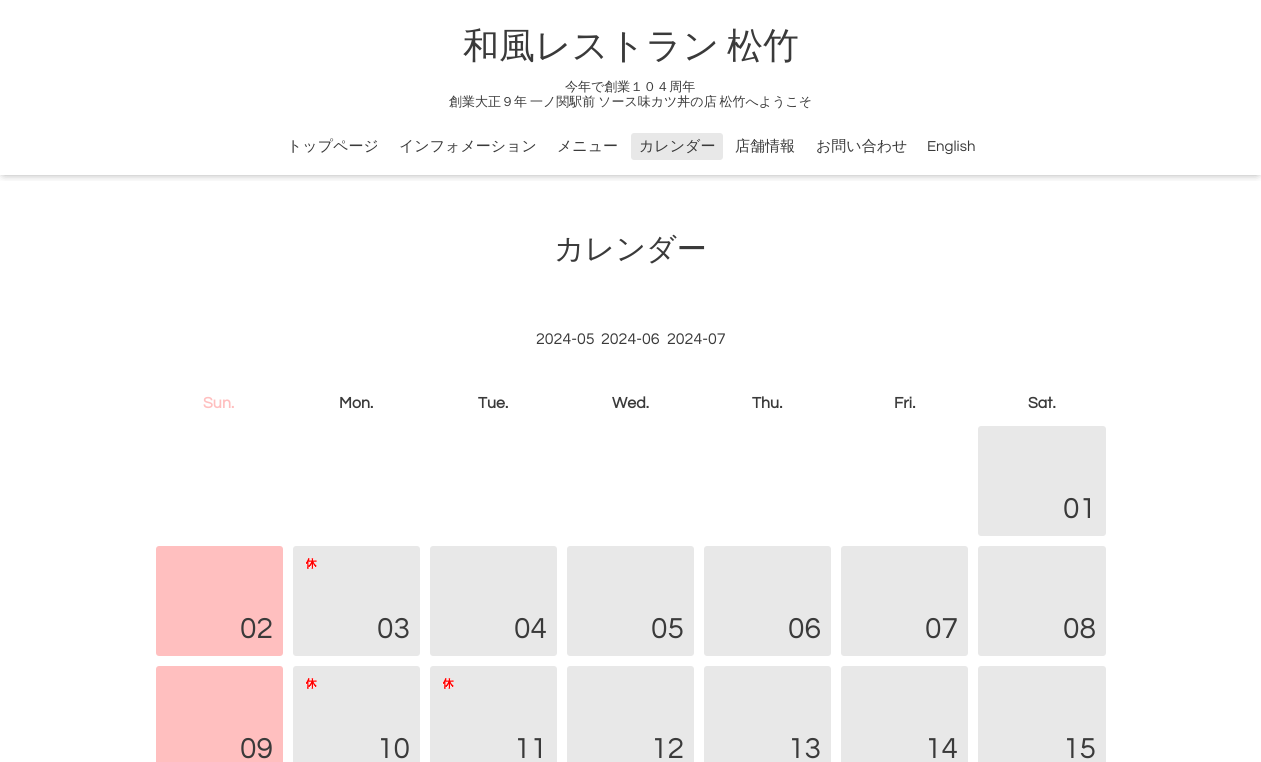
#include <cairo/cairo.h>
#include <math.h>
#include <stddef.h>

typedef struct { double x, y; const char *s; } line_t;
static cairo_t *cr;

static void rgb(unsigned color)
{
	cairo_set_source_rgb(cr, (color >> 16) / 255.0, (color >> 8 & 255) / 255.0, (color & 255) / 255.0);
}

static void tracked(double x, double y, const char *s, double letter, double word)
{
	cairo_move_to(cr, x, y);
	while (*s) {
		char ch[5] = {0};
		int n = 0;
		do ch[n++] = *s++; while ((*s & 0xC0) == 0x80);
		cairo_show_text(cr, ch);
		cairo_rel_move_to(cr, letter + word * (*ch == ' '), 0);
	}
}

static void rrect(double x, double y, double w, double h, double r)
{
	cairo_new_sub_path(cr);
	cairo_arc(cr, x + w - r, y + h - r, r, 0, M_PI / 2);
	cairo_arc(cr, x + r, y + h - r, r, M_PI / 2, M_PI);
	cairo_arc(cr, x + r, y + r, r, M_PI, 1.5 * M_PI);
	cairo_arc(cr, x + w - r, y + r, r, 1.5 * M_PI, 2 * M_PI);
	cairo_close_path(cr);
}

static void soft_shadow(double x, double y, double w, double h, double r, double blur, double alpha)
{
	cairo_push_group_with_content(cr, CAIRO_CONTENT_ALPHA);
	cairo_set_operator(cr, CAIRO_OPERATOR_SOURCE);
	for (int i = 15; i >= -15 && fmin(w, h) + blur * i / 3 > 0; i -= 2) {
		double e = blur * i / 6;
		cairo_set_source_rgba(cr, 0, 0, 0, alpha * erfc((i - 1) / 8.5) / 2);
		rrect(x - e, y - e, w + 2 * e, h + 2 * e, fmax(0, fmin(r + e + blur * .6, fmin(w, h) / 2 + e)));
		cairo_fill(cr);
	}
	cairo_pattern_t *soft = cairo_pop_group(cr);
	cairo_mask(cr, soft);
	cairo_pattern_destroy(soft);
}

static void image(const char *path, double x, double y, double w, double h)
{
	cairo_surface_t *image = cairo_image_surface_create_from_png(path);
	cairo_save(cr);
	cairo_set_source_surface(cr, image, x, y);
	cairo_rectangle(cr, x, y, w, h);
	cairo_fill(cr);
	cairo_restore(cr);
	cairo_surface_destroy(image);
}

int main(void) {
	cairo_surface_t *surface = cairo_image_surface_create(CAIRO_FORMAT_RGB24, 1261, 762);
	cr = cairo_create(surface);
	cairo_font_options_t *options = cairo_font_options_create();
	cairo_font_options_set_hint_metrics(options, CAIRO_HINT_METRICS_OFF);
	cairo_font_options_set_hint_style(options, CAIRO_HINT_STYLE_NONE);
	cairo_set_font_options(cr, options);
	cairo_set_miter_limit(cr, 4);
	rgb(0xffffff);
	cairo_paint(cr);
	cairo_save(cr);
	cairo_rectangle(cr, 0, 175, 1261, 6);
	cairo_clip(cr);
	rgb(0x000000);
	soft_shadow(4, 5, 1253, 167, 0, 5, 0.6);
	cairo_restore(cr);
	rgb(0xe8e8e8);
	rrect(631, 133, 92, 27, 3);
	cairo_fill(cr);
	rrect(978, 426, 128, 110, 3);
	cairo_fill(cr);
	rgb(0xffbfbf);
	rrect(156, 546, 127, 110, 3);
	cairo_fill(cr);
	rgb(0xe8e8e8);
	rrect(293, 546, 127, 110, 3);
	cairo_fill(cr);
	image("img/1.png", 305, 558, 12, 11);
	rrect(430, 546, 127, 110, 3);
	cairo_fill(cr);
	rrect(567, 546, 127, 110, 3);
	cairo_fill(cr);
	rrect(704, 546, 127, 110, 3);
	cairo_fill(cr);
	rrect(841, 546, 127, 110, 3);
	cairo_fill(cr);
	rrect(978, 546, 128, 110, 3);
	cairo_fill(cr);
	rgb(0xffbfbf);
	rrect(156, 666, 127, 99, 3);
	cairo_fill(cr);
	rgb(0xe8e8e8);
	rrect(293, 666, 127, 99, 3);
	cairo_fill(cr);
	image("img/1.png", 305, 678, 12, 11);
	rrect(430, 666, 127, 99, 3);
	cairo_fill(cr);
	image("img/1.png", 442, 678, 12, 11);
	rrect(567, 666, 127, 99, 3);
	cairo_fill(cr);
	rrect(704, 666, 127, 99, 3);
	cairo_fill(cr);
	rrect(841, 666, 127, 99, 3);
	cairo_fill(cr);
	rrect(978, 666, 128, 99, 3);
	cairo_fill(cr);
	cairo_select_font_face(cr, "WenQuanYi Zen Hei Medium", CAIRO_FONT_SLANT_NORMAL, CAIRO_FONT_WEIGHT_NORMAL);
	cairo_set_font_size(cr, 36);
	rgb(0x3a3a3a);
	tracked(463, 58, "和風レストラン 松竹", 0, -3);
	cairo_set_font_size(cr, 13);
	cairo_move_to(cr, 565, 91);
	cairo_show_text(cr, "今年で創業１０４周年");
	tracked(449, 106, "創業大正９年 一ノ関駅前 ソース味カツ丼の店 松竹へようこそ", 0, -1);
	cairo_set_font_size(cr, 15);
	{
		static const line_t items[] = {
			{287, 151, "トップページ"},
			{399, 151, "インフォメーション"},
			{557, 151, "メニュー"},
			{639, 151, "カレンダー"},
			{735, 151, "店舗情報"},
			{816, 151, "お問い合わせ"},
		};
		for (size_t i = 0; i < sizeof items / sizeof *items; i++) {
			cairo_move_to(cr, items[i].x, items[i].y);
			cairo_show_text(cr, items[i].s);
		}
	}
	cairo_select_font_face(cr, "Questrial", CAIRO_FONT_SLANT_NORMAL, CAIRO_FONT_WEIGHT_NORMAL);
	cairo_move_to(cr, 927, 151);
	cairo_show_text(cr, "English");
	cairo_select_font_face(cr, "WenQuanYi Zen Hei Medium", CAIRO_FONT_SLANT_NORMAL, CAIRO_FONT_WEIGHT_NORMAL);
	cairo_set_font_size(cr, 30);
	cairo_move_to(cr, 554, 259);
	cairo_show_text(cr, "カレンダー");
	cairo_select_font_face(cr, "Questrial", CAIRO_FONT_SLANT_NORMAL, CAIRO_FONT_WEIGHT_NORMAL);
	cairo_set_font_size(cr, 16);
	{
		static const line_t items[] = {
			{536, 344, "2024-05"},
			{601, 344, "2024-06"},
			{667, 344, "2024-07"},
		};
		for (size_t i = 0; i < sizeof items / sizeof *items; i++) {
			cairo_move_to(cr, items[i].x, items[i].y);
			cairo_show_text(cr, items[i].s);
		}
	}
	cairo_select_font_face(cr, "Questrial", CAIRO_FONT_SLANT_NORMAL, CAIRO_FONT_WEIGHT_BOLD);
	rgb(0xffbfbf);
	cairo_move_to(cr, 203, 408);
	cairo_show_text(cr, "Sun.");
	rgb(0x3a3a3a);
	{
		static const line_t items[] = {
			{339, 408, "Mon."},
			{478, 408, "Tue."},
			{612, 408, "Wed."},
			{752, 408, "Thu."},
			{894, 408, "Fri."},
			{1028, 408, "Sat."},
		};
		for (size_t i = 0; i < sizeof items / sizeof *items; i++) {
			cairo_move_to(cr, items[i].x, items[i].y);
			cairo_show_text(cr, items[i].s);
		}
	}
	cairo_select_font_face(cr, "Questrial", CAIRO_FONT_SLANT_NORMAL, CAIRO_FONT_WEIGHT_NORMAL);
	cairo_set_font_size(cr, 30);
	{
		static const line_t items[] = {
			{1063, 518, "01"},
			{240, 638, "02"},
			{377, 638, "03"},
			{514, 638, "04"},
			{651, 638, "05"},
			{788, 638, "06"},
			{925, 638, "07"},
			{1063, 638, "08"},
			{240, 758, "09"},
			{377, 758, "10"},
			{514, 758, "11"},
			{651, 758, "12"},
			{788, 758, "13"},
			{925, 758, "14"},
			{1063, 758, "15"},
		};
		for (size_t i = 0; i < sizeof items / sizeof *items; i++) {
			cairo_move_to(cr, items[i].x, items[i].y);
			cairo_show_text(cr, items[i].s);
		}
	}
	cairo_surface_write_to_png(surface, "page.png");
	cairo_font_options_destroy(options);
	cairo_destroy(cr);
	cairo_surface_destroy(surface);
	return 0;
}
